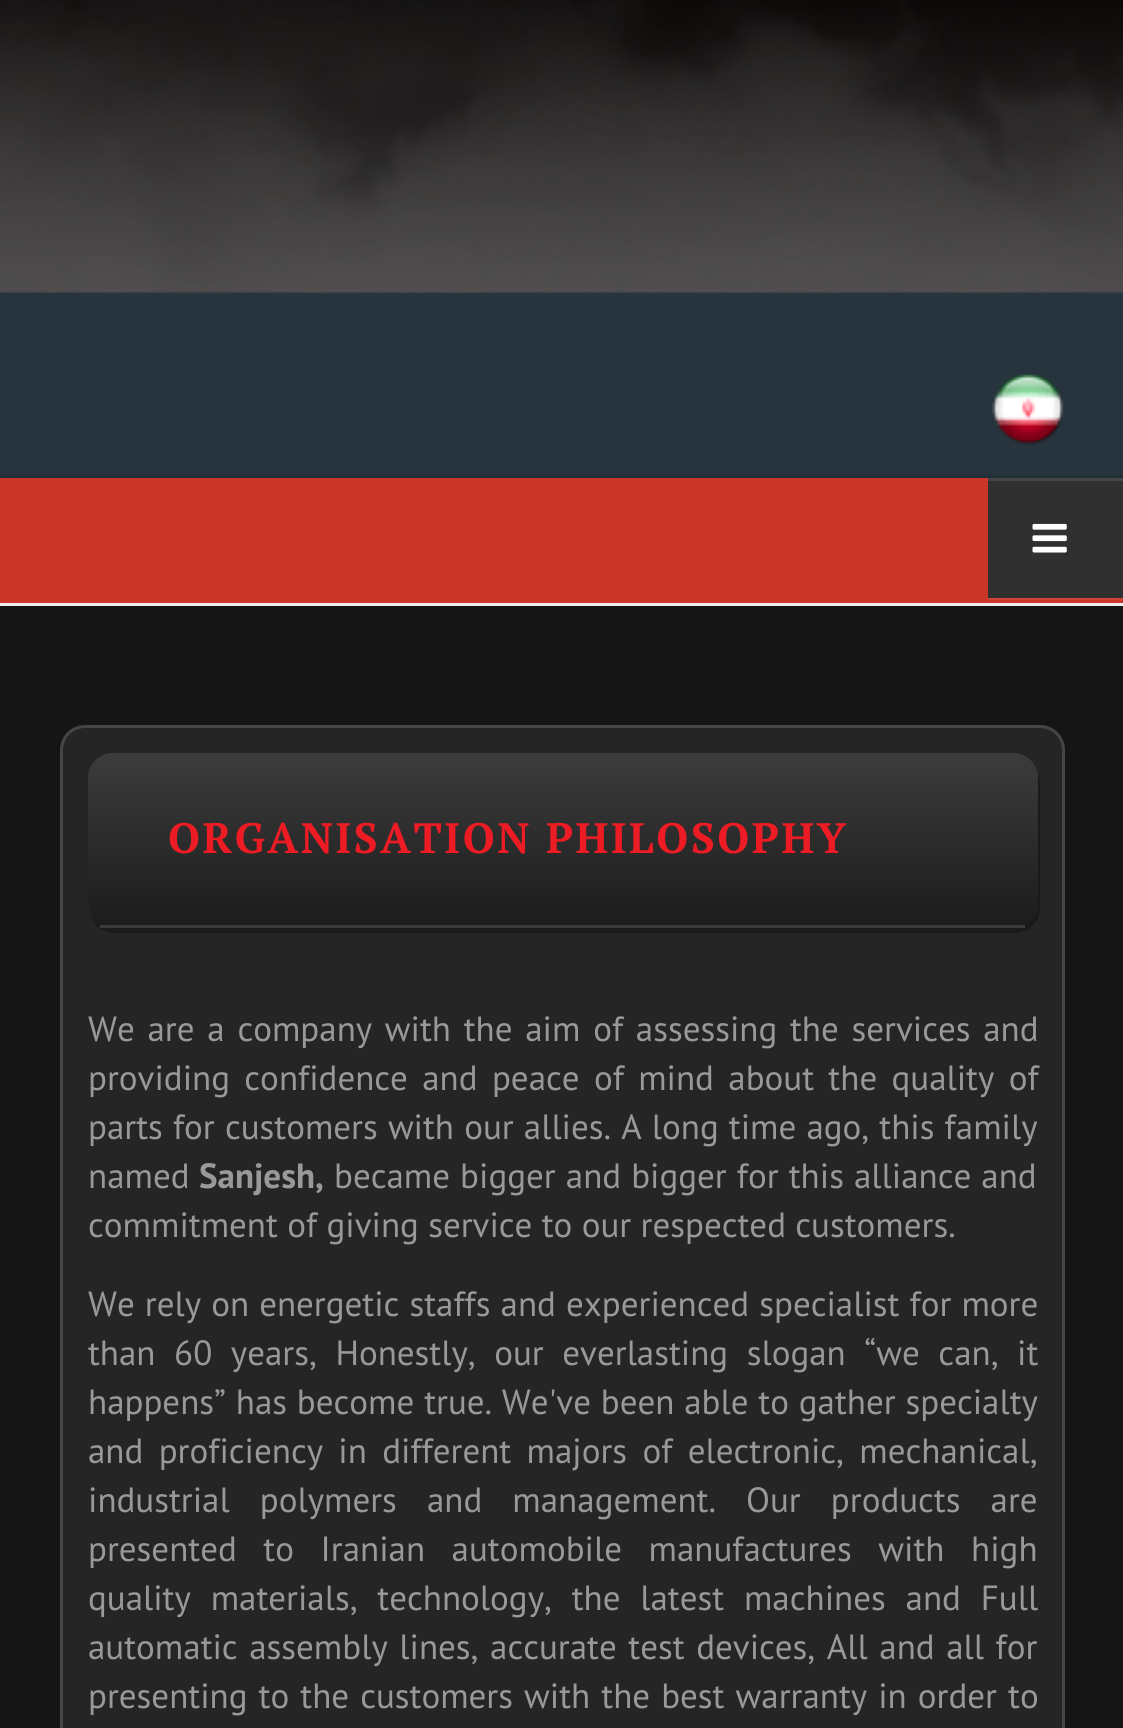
#include <cairo/cairo.h>
#include <math.h>
#include <stddef.h>

typedef struct { double x, y, w, h; unsigned color; } box_t;
static cairo_t *cr;

static void rgb(unsigned color)
{
	cairo_set_source_rgb(cr, (color >> 16) / 255.0, (color >> 8 & 255) / 255.0, (color & 255) / 255.0);
}

static void tracked(double x, double y, const char *s, double letter, double word)
{
	cairo_move_to(cr, x, y);
	while (*s) {
		char ch[5] = {0};
		int n = 0;
		do ch[n++] = *s++; while ((*s & 0xC0) == 0x80);
		cairo_show_text(cr, ch);
		cairo_rel_move_to(cr, letter + word * (*ch == ' '), 0);
	}
}

static void rrect(double x, double y, double w, double h, double r)
{
	cairo_new_sub_path(cr);
	cairo_arc(cr, x + w - r, y + h - r, r, 0, M_PI / 2);
	cairo_arc(cr, x + r, y + h - r, r, M_PI / 2, M_PI);
	cairo_arc(cr, x + r, y + r, r, M_PI, 1.5 * M_PI);
	cairo_arc(cr, x + w - r, y + r, r, 1.5 * M_PI, 2 * M_PI);
	cairo_close_path(cr);
}

static void image(const char *path, double x, double y, double w, double h)
{
	cairo_surface_t *image = cairo_image_surface_create_from_png(path);
	cairo_save(cr);
	cairo_set_source_surface(cr, image, x, y);
	cairo_rectangle(cr, x, y, w, h);
	cairo_fill(cr);
	cairo_restore(cr);
	cairo_surface_destroy(image);
}

int main(void) {
	cairo_surface_t *surface = cairo_image_surface_create(CAIRO_FORMAT_RGB24, 1123, 1728);
	cr = cairo_create(surface);
	cairo_font_options_t *options = cairo_font_options_create();
	cairo_font_options_set_hint_metrics(options, CAIRO_HINT_METRICS_OFF);
	cairo_font_options_set_hint_style(options, CAIRO_HINT_STYLE_NONE);
	cairo_set_font_options(cr, options);
	cairo_set_miter_limit(cr, 4);
	cairo_pattern_t *gradient;
	rgb(0x151515);
	cairo_paint(cr);
	rgb(0x27343d);
	cairo_rectangle(cr, 0, 291, 1123, 184);
	cairo_fill(cr);
	image("img/1.png", 0, 0, 1123, 294);
	rgb(0x232f37);
	cairo_rectangle(cr, 0, 475, 1123, 3);
	cairo_fill(cr);
	image("img/2.png", 992, 372, 72, 73);
	{
		static const box_t items[] = {
			{0, 478, 1123, 125, 0xcb362a},
			{0, 603, 1123, 3, 0xeeeeee},
			{988, 598, 135, 2, 0xcf453a},
			{988, 481, 135, 117, 0x303030},
			{988, 478, 135, 3, 0x454545},
		};
		for (size_t i = 0; i < sizeof items / sizeof *items; i++) {
			rgb(items[i].color);
			cairo_rectangle(cr, items[i].x, items[i].y, items[i].w, items[i].h);
			cairo_fill(cr);
		}
	}
	image("img/3.png", 1032, 523, 35, 30);
	rgb(0x252525);
	rrect(61.5, 726.5, 1002, 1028, 23.5);
	cairo_fill_preserve(cr);
	rgb(0x454545);
	cairo_set_line_width(cr, 3);
	cairo_stroke(cr);
	rgb(0x1a1a1a);
	cairo_new_path(cr);
	cairo_move_to(cr, 91, 916);
	cairo_curve_to(cr, 94, 926, 104, 933, 115, 933);
	cairo_line_to(cr, 1015, 933);
	cairo_curve_to(cr, 1029, 933, 1040, 922, 1040, 908);
	cairo_line_to(cr, 1040, 783);
	cairo_curve_to(cr, 1040, 778, 1039, 774, 1036, 770);
	cairo_curve_to(cr, 1037, 772, 1038, 775, 1038, 778);
	cairo_line_to(cr, 1038, 902);
	cairo_curve_to(cr, 1038, 916, 1026, 928, 1012, 928);
	cairo_line_to(cr, 112, 928);
	cairo_curve_to(cr, 103, 928, 96, 923, 91, 916);
	cairo_close_path(cr);
	cairo_fill(cr);
	rgb(0x2f2f2f);
	rrect(88, 753, 950, 175, 25);
	cairo_fill(cr);
	cairo_save(cr);
	rrect(88, 753, 950, 175, 25);
	cairo_clip(cr);
	gradient = cairo_pattern_create_linear(563, 753, 563, 925);
	cairo_pattern_add_color_stop_rgba(gradient, 0, 0.235, 0.235, 0.235, 1);
	cairo_pattern_add_color_stop_rgba(gradient, 1, 0.11, 0.11, 0.11, 1);
	cairo_set_source(cr, gradient);
	cairo_pattern_destroy(gradient);
	cairo_new_path(cr);
	cairo_move_to(cr, 113, 753);
	cairo_line_to(cr, 1013, 753);
	cairo_curve_to(cr, 1027, 753, 1038, 764, 1038, 778);
	cairo_line_to(cr, 1038, 925);
	cairo_line_to(cr, 88, 925);
	cairo_line_to(cr, 88, 778);
	cairo_curve_to(cr, 88, 764, 99, 753, 113, 753);
	cairo_close_path(cr);
	cairo_fill(cr);
	cairo_restore(cr);
	rgb(0x3b3b3b);
	cairo_rectangle(cr, 100, 925, 925, 3);
	cairo_fill(cr);
	cairo_select_font_face(cr, "PT Serif", CAIRO_FONT_SLANT_NORMAL, CAIRO_FONT_WEIGHT_BOLD);
	cairo_set_font_size(cr, 42.5);
	rgb(0xed1c24);
	tracked(168, 853, "ORGANISATION PHILOSOPHY", 2.5, 0);
	cairo_select_font_face(cr, "PT Sans", CAIRO_FONT_SLANT_NORMAL, CAIRO_FONT_WEIGHT_NORMAL);
	cairo_set_font_size(cr, 35);
	rgb(0x999999);
	tracked(88, 1041, "We are a company with the aim of assessing the services and", 0, 3.4);
	tracked(88, 1090, "providing confidence and peace of mind about the quality of", 0, 5);
	tracked(88, 1139, "parts for customers with our allies. A long time ago, this family", 0, 0.8);
	cairo_move_to(cr, 88, 1188);
	cairo_show_text(cr, "named");
	cairo_select_font_face(cr, "PT Sans", CAIRO_FONT_SLANT_NORMAL, CAIRO_FONT_WEIGHT_BOLD);
	cairo_move_to(cr, 199, 1188);
	cairo_show_text(cr, "Sanjesh,");
	cairo_select_font_face(cr, "PT Sans", CAIRO_FONT_SLANT_NORMAL, CAIRO_FONT_WEIGHT_NORMAL);
	tracked(334, 1188, "became bigger and bigger for this alliance and", 0, 0.75);
	cairo_move_to(cr, 88, 1237);
	cairo_show_text(cr, "commitment of giving service to our respected customers.");
	tracked(88, 1316, "We rely on energetic staffs and experienced specialist for more", 0, 0.75);
	tracked(88, 1365, "than 60 years, Honestly, our everlasting slogan “we can, it", 0, 9.25);
	tracked(88, 1414, "happens” has become true. We've been able to gather specialty", 0, 0.5);
	tracked(88, 1463, "and proficiency in different majors of electronic, mechanical,", 0, 6);
	tracked(88, 1512, "industrial polymers and management. Our products are", 0, 20.75);
	tracked(88, 1561, "presented to Iranian automobile manufactures with high", 0, 17.25);
	tracked(88, 1610, "quality materials, technology, the latest machines and Full", 0, 10.5);
	tracked(88, 1659, "automatic assembly lines, accurate test devices, All and all for", 0, 2.25);
	tracked(88, 1708, "presenting to the customers with the best warranty in order to", 0, 1.75);
	cairo_surface_write_to_png(surface, "page.png");
	cairo_font_options_destroy(options);
	cairo_destroy(cr);
	cairo_surface_destroy(surface);
	return 0;
}
